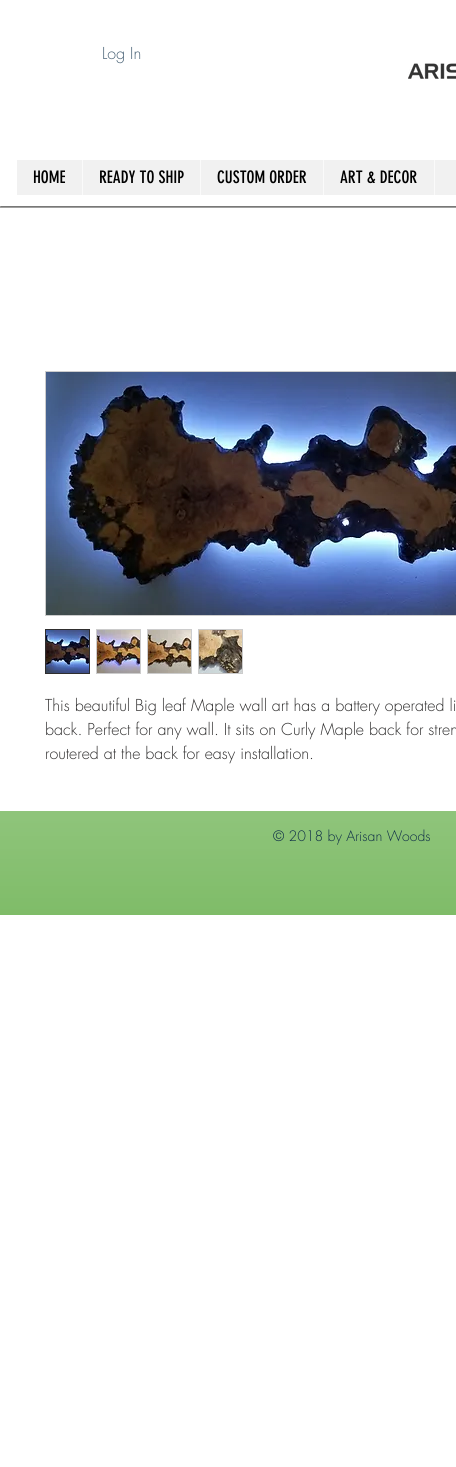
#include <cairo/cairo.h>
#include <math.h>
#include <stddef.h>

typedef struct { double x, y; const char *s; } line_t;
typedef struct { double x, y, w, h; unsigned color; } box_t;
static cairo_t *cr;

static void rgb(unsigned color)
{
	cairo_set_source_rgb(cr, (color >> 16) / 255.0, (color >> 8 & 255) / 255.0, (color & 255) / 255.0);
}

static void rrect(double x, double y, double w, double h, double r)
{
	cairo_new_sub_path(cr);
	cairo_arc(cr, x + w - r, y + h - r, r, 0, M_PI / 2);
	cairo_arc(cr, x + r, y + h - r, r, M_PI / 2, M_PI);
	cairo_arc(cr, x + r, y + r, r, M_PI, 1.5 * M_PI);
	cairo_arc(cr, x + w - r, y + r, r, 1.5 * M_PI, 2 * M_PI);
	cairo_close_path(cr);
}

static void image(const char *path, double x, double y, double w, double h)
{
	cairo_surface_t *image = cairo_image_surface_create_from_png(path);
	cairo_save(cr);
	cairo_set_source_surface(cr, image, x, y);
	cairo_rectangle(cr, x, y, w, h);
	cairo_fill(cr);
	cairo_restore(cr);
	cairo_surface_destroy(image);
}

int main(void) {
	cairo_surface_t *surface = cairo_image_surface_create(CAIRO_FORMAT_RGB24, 456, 1467);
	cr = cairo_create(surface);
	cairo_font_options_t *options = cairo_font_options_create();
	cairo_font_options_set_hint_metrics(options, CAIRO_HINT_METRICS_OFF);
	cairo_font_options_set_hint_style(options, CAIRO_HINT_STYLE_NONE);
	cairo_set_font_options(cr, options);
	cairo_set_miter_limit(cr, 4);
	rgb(0xffffff);
	cairo_paint(cr);
	image("img/1.png", 408, 63, 48, 16);
	{
		static const box_t items[] = {
			{17, 160, 439, 35, 0xf1f1f1},
			{82, 160, 1, 35, 0xfafafa},
			{200, 160, 1, 35, 0xfafafa},
			{323, 160, 1, 35, 0xfafafa},
			{434, 160, 1, 35, 0xfafafa},
		};
		for (size_t i = 0; i < sizeof items / sizeof *items; i++) {
			rgb(items[i].color);
			cairo_rectangle(cr, items[i].x, items[i].y, items[i].w, items[i].h);
			cairo_fill(cr);
		}
	}
	rgb(0xa0a09f);
	rrect(0, 206, 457, 2, 1);
	cairo_fill(cr);
	cairo_set_source_rgba(cr, 0, 0, 0, 0.25);
	cairo_new_path(cr);
	cairo_move_to(cr, 1, 207);
	cairo_line_to(cr, 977, 207);
	cairo_line_to(cr, 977, 208);
	cairo_curve_to(cr, 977, 207, 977, 206, 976, 206);
	cairo_line_to(cr, 1, 206);
	cairo_curve_to(cr, 0, 206, 0, 207, 0, 208);
	cairo_close_path(cr);
	cairo_fill(cr);
	cairo_rectangle(cr, 45.5, 371.5, 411, 244);
	rgb(0xcccccc);
	cairo_set_line_width(cr, 1);
	cairo_stroke(cr);
	image("img/2.png", 46, 372, 410, 243);
	cairo_rectangle(cr, 45.5, 629.5, 44, 44);
	rgb(0x2f2e2e);
	cairo_stroke(cr);
	image("img/3.png", 46, 630, 43, 43);
	rgb(0xcccccc);
	cairo_rectangle(cr, 96, 629, 45, 45);
	cairo_fill(cr);
	image("img/4.png", 97, 630, 43, 43);
	cairo_rectangle(cr, 147, 629, 45, 45);
	cairo_fill(cr);
	image("img/5.png", 148, 630, 43, 43);
	cairo_rectangle(cr, 198, 629, 45, 45);
	cairo_fill(cr);
	image("img/6.png", 199, 630, 43, 43);
	rgb(0x68b04d);
	cairo_rectangle(cr, 0, 811, 456, 104);
	cairo_fill(cr);
	image("img/7.png", 0, 811, 456, 104);
	cairo_select_font_face(cr, "futura Light", CAIRO_FONT_SLANT_NORMAL, CAIRO_FONT_WEIGHT_NORMAL);
	cairo_set_font_size(cr, 16);
	rgb(0x476074);
	cairo_move_to(cr, 102, 59);
	cairo_show_text(cr, "Log In");
	cairo_select_font_face(cr, "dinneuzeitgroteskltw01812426", CAIRO_FONT_SLANT_NORMAL, CAIRO_FONT_WEIGHT_NORMAL);
	cairo_set_font_size(cr, 17);
	rgb(0x000000);
	{
		static const line_t items[] = {
			{33, 183, "HOME"},
			{99, 183, "READY TO SHIP"},
			{217, 183, "CUSTOM ORDER"},
			{340, 183, "ART & DECOR"},
		};
		for (size_t i = 0; i < sizeof items / sizeof *items; i++) {
			cairo_move_to(cr, items[i].x, items[i].y);
			cairo_show_text(cr, items[i].s);
		}
	}
	cairo_select_font_face(cr, "futura Light", CAIRO_FONT_SLANT_NORMAL, CAIRO_FONT_WEIGHT_NORMAL);
	cairo_set_font_size(cr, 16);
	rgb(0x2f2e2e);
	{
		static const line_t items[] = {
			{45, 711, "This beautiful Big leaf Maple wall art has a battery operated li"},
			{45, 735, "back. Perfect for any wall. It sits on Curly Maple back for stren"},
			{45, 759, "routered at the back for easy installation."},
		};
		for (size_t i = 0; i < sizeof items / sizeof *items; i++) {
			cairo_move_to(cr, items[i].x, items[i].y);
			cairo_show_text(cr, items[i].s);
		}
	}
	cairo_set_font_size(cr, 14);
	rgb(0x0e2e47);
	cairo_move_to(cr, 273, 841);
	cairo_show_text(cr, "© 2018 by Arisan Woods");
	cairo_surface_write_to_png(surface, "page.png");
	cairo_font_options_destroy(options);
	cairo_destroy(cr);
	cairo_surface_destroy(surface);
	return 0;
}
